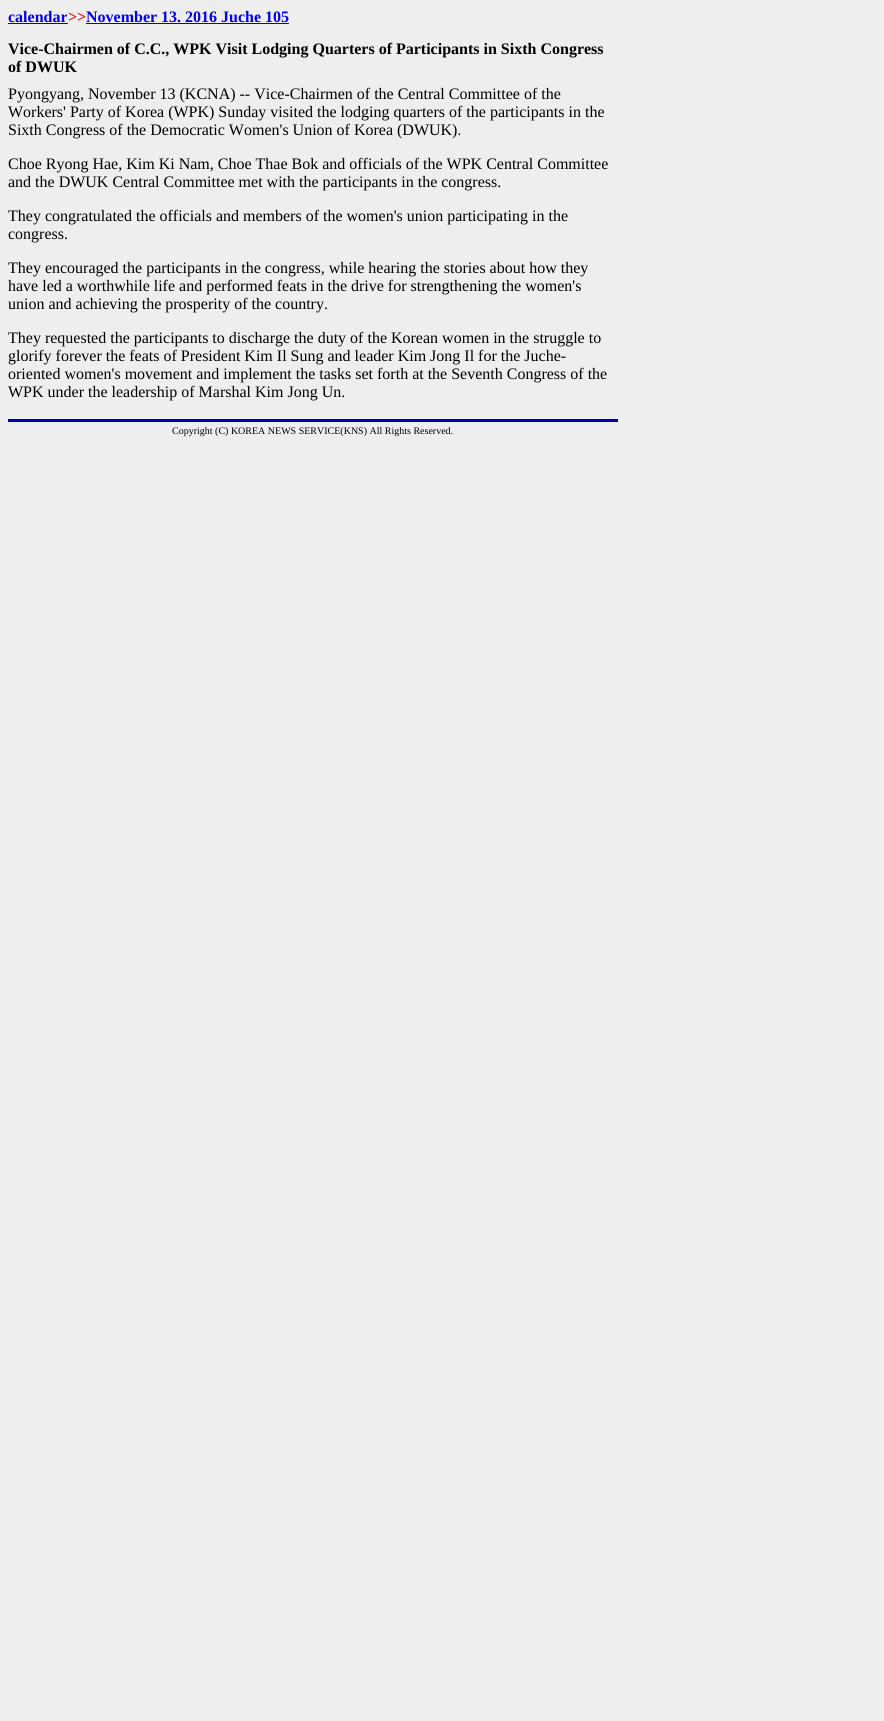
#include <cairo/cairo.h>
#include <math.h>
#include <stddef.h>

typedef struct { double x, y; const char *s; } line_t;
typedef struct { double x, y, w, h; unsigned color; } box_t;
static cairo_t *cr;

static void rgb(unsigned color)
{
	cairo_set_source_rgb(cr, (color >> 16) / 255.0, (color >> 8 & 255) / 255.0, (color & 255) / 255.0);
}

int main(void) {
	cairo_surface_t *surface = cairo_image_surface_create(CAIRO_FORMAT_RGB24, 884, 1721);
	cr = cairo_create(surface);
	cairo_font_options_t *options = cairo_font_options_create();
	cairo_font_options_set_hint_metrics(options, CAIRO_HINT_METRICS_OFF);
	cairo_font_options_set_hint_style(options, CAIRO_HINT_STYLE_NONE);
	cairo_set_font_options(cr, options);
	cairo_set_miter_limit(cr, 4);
	rgb(0xeeeeee);
	cairo_paint(cr);
	{
		static const box_t items[] = {
			{8, 23, 60, 1, 0x0000ee},
			{86, 23, 203, 1, 0x0000ee},
			{8, 419, 610, 3, 0x0000aa},
		};
		for (size_t i = 0; i < sizeof items / sizeof *items; i++) {
			rgb(items[i].color);
			cairo_rectangle(cr, items[i].x, items[i].y, items[i].w, items[i].h);
			cairo_fill(cr);
		}
	}
	cairo_select_font_face(cr, "Liberation Serif", CAIRO_FONT_SLANT_NORMAL, CAIRO_FONT_WEIGHT_BOLD);
	cairo_set_font_size(cr, 16);
	rgb(0x0000ee);
	cairo_move_to(cr, 8, 22);
	cairo_show_text(cr, "calendar");
	rgb(0xee0000);
	cairo_move_to(cr, 68, 22);
	cairo_show_text(cr, ">>");
	rgb(0x0000ee);
	cairo_move_to(cr, 86, 22);
	cairo_show_text(cr, "November 13. 2016 Juche 105");
	rgb(0x000000);
	cairo_move_to(cr, 8, 54);
	cairo_show_text(cr, "Vice-Chairmen of C.C., WPK Visit Lodging Quarters of Participants in Sixth Congress");
	cairo_move_to(cr, 8, 72);
	cairo_show_text(cr, "of DWUK");
	cairo_select_font_face(cr, "Liberation Serif", CAIRO_FONT_SLANT_NORMAL, CAIRO_FONT_WEIGHT_NORMAL);
	{
		static const line_t items[] = {
			{8, 99, "Pyongyang, November 13 (KCNA) -- Vice-Chairmen of the Central Committee of the"},
			{8, 117, "Workers' Party of Korea (WPK) Sunday visited the lodging quarters of the participants in the"},
			{8, 135, "Sixth Congress of the Democratic Women's Union of Korea (DWUK)."},
			{8, 169, "Choe Ryong Hae, Kim Ki Nam, Choe Thae Bok and officials of the WPK Central Committee"},
			{8, 187, "and the DWUK Central Committee met with the participants in the congress."},
			{8, 221, "They congratulated the officials and members of the women's union participating in the"},
			{8, 239, "congress."},
			{8, 273, "They encouraged the participants in the congress, while hearing the stories about how they"},
			{8, 291, "have led a worthwhile life and performed feats in the drive for strengthening the women's"},
			{8, 309, "union and achieving the prosperity of the country."},
			{8, 343, "They requested the participants to discharge the duty of the Korean women in the struggle to"},
			{8, 361, "glorify forever the feats of President Kim Il Sung and leader Kim Jong Il for the Juche-"},
			{8, 379, "oriented women's movement and implement the tasks set forth at the Seventh Congress of the"},
			{8, 397, "WPK under the leadership of Marshal Kim Jong Un."},
		};
		for (size_t i = 0; i < sizeof items / sizeof *items; i++) {
			cairo_move_to(cr, items[i].x, items[i].y);
			cairo_show_text(cr, items[i].s);
		}
	}
	cairo_set_font_size(cr, 10);
	cairo_move_to(cr, 172, 434);
	cairo_show_text(cr, "Copyright (C) KOREA NEWS SERVICE(KNS) All Rights Reserved.");
	cairo_surface_write_to_png(surface, "page.png");
	cairo_font_options_destroy(options);
	cairo_destroy(cr);
	cairo_surface_destroy(surface);
	return 0;
}
